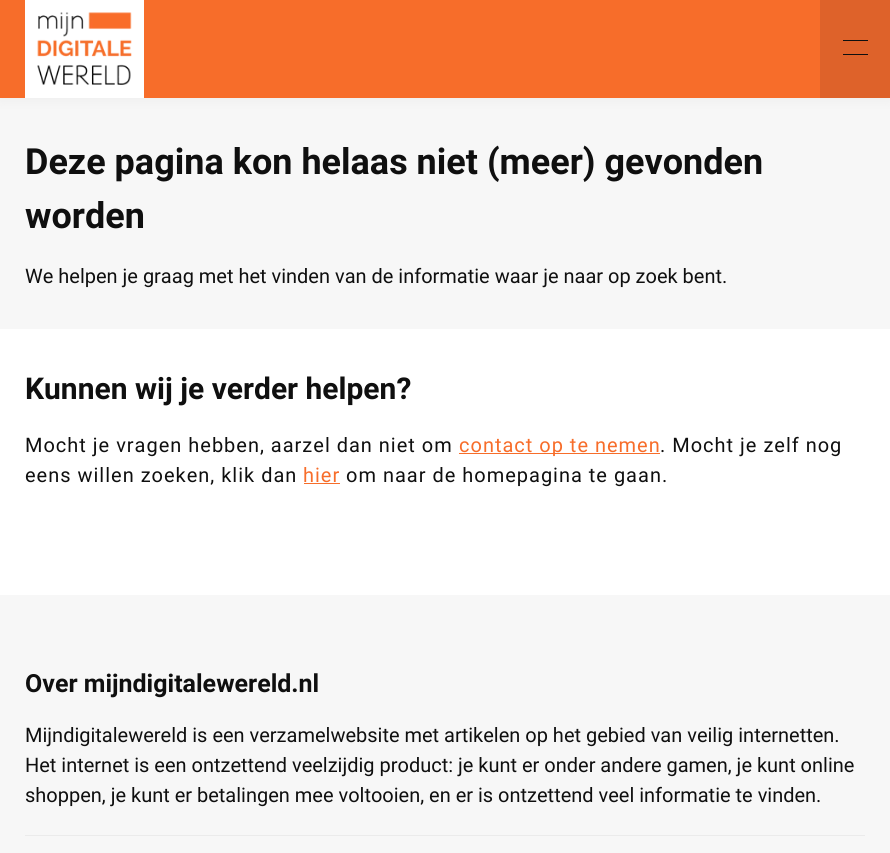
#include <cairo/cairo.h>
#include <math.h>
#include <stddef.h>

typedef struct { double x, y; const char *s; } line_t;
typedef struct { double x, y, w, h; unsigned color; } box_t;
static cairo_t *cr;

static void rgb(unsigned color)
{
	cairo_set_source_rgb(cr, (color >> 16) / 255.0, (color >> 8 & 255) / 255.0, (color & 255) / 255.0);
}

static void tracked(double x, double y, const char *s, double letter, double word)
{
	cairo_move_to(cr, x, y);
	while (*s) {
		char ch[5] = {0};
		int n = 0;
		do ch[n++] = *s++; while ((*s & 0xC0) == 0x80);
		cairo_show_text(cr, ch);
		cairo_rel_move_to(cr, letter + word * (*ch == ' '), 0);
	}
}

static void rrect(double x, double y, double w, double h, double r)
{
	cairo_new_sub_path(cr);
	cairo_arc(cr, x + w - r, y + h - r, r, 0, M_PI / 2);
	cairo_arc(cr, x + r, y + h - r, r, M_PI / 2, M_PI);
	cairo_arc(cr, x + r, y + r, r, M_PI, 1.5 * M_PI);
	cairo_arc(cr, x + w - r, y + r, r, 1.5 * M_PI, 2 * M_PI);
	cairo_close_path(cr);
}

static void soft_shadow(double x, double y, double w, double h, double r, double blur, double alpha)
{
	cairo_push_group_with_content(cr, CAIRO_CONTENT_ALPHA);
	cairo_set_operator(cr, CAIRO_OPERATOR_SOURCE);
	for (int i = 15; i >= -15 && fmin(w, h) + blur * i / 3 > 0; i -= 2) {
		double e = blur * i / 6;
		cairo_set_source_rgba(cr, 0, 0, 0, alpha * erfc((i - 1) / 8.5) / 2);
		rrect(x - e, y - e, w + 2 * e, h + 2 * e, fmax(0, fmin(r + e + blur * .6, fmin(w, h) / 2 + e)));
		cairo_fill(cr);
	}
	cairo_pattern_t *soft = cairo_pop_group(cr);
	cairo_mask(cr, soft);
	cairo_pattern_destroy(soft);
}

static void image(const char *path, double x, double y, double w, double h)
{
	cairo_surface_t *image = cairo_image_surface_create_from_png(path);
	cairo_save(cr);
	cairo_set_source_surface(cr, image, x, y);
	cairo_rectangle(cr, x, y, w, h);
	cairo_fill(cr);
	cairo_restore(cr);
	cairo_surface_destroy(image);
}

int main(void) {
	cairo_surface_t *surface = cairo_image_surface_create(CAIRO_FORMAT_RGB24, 890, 853);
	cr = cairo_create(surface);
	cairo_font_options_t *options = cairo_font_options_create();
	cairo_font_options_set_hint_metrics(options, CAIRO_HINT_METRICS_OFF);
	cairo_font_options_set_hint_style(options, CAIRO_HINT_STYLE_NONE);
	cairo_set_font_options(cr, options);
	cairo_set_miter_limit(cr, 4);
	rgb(0xffffff);
	cairo_paint(cr);
	rgb(0xf7f7f7);
	cairo_rectangle(cr, 0, 98, 890, 231);
	cairo_fill(cr);
	rgb(0x000000);
	soft_shadow(0, 0, 890, 98, 0, 7.5, 0.05);
	rgb(0xf76d2a);
	cairo_rectangle(cr, 0, 0, 820, 98);
	cairo_fill(cr);
	rgb(0xffffff);
	cairo_rectangle(cr, 25, 0, 119, 98);
	cairo_fill(cr);
	image("img/1.png", 37, 12, 95, 73);
	{
		static const box_t items[] = {
			{820, 0, 70, 98, 0xde622a},
			{843, 40, 25, 1, 0x0f0f0f},
			{843, 54, 25, 1, 0x0f0f0f},
			{459, 453, 201, 1, 0xf76d2a},
			{304, 483, 36, 1, 0xf76d2a},
			{0, 595, 890, 258, 0xf7f7f7},
			{25, 835, 840, 1, 0xebebeb},
		};
		for (size_t i = 0; i < sizeof items / sizeof *items; i++) {
			rgb(items[i].color);
			cairo_rectangle(cr, items[i].x, items[i].y, items[i].w, items[i].h);
			cairo_fill(cr);
		}
	}
	cairo_select_font_face(cr, "Roboto", CAIRO_FONT_SLANT_NORMAL, CAIRO_FONT_WEIGHT_BOLD);
	cairo_set_font_size(cr, 36);
	rgb(0x0f0f0f);
	cairo_move_to(cr, 25, 174);
	cairo_show_text(cr, "Deze pagina kon helaas niet (meer) gevonden");
	cairo_move_to(cr, 25, 228);
	cairo_show_text(cr, "worden");
	cairo_select_font_face(cr, "Roboto", CAIRO_FONT_SLANT_NORMAL, CAIRO_FONT_WEIGHT_NORMAL);
	cairo_set_font_size(cr, 20);
	cairo_move_to(cr, 25, 283);
	cairo_show_text(cr, "We helpen je graag met het vinden van de informatie waar je naar op zoek bent.");
	cairo_select_font_face(cr, "Roboto", CAIRO_FONT_SLANT_NORMAL, CAIRO_FONT_WEIGHT_BOLD);
	cairo_set_font_size(cr, 30);
	cairo_move_to(cr, 25, 399);
	cairo_show_text(cr, "Kunnen wij je verder helpen?");
	cairo_select_font_face(cr, "Roboto", CAIRO_FONT_SLANT_NORMAL, CAIRO_FONT_WEIGHT_NORMAL);
	cairo_set_font_size(cr, 20);
	tracked(25, 452, "Mocht je vragen hebben, aarzel dan niet om", 1, 0);
	rgb(0xf76d2a);
	tracked(459, 452, "contact op te nemen", 1, 0);
	rgb(0x0f0f0f);
	tracked(660, 452, ". Mocht je zelf nog", 1, 0);
	tracked(25, 482, "eens willen zoeken, klik dan", 1, 0);
	rgb(0xf76d2a);
	tracked(303, 482, "hier", 1, 0);
	rgb(0x0f0f0f);
	tracked(346, 482, "om naar de homepagina te gaan.", 1, 0);
	cairo_select_font_face(cr, "Roboto", CAIRO_FONT_SLANT_NORMAL, CAIRO_FONT_WEIGHT_BOLD);
	cairo_set_font_size(cr, 25);
	cairo_move_to(cr, 25, 692);
	cairo_show_text(cr, "Over mijndigitalewereld.nl");
	cairo_select_font_face(cr, "Roboto", CAIRO_FONT_SLANT_NORMAL, CAIRO_FONT_WEIGHT_NORMAL);
	cairo_set_font_size(cr, 20);
	{
		static const line_t items[] = {
			{25, 742, "Mijndigitalewereld is een verzamelwebsite met artikelen op het gebied van veilig internetten."},
			{25, 772, "Het internet is een ontzettend veelzijdig product: je kunt er onder andere gamen, je kunt online"},
			{25, 802, "shoppen, je kunt er betalingen mee voltooien, en er is ontzettend veel informatie te vinden."},
		};
		for (size_t i = 0; i < sizeof items / sizeof *items; i++) {
			cairo_move_to(cr, items[i].x, items[i].y);
			cairo_show_text(cr, items[i].s);
		}
	}
	cairo_surface_write_to_png(surface, "page.png");
	cairo_font_options_destroy(options);
	cairo_destroy(cr);
	cairo_surface_destroy(surface);
	return 0;
}
